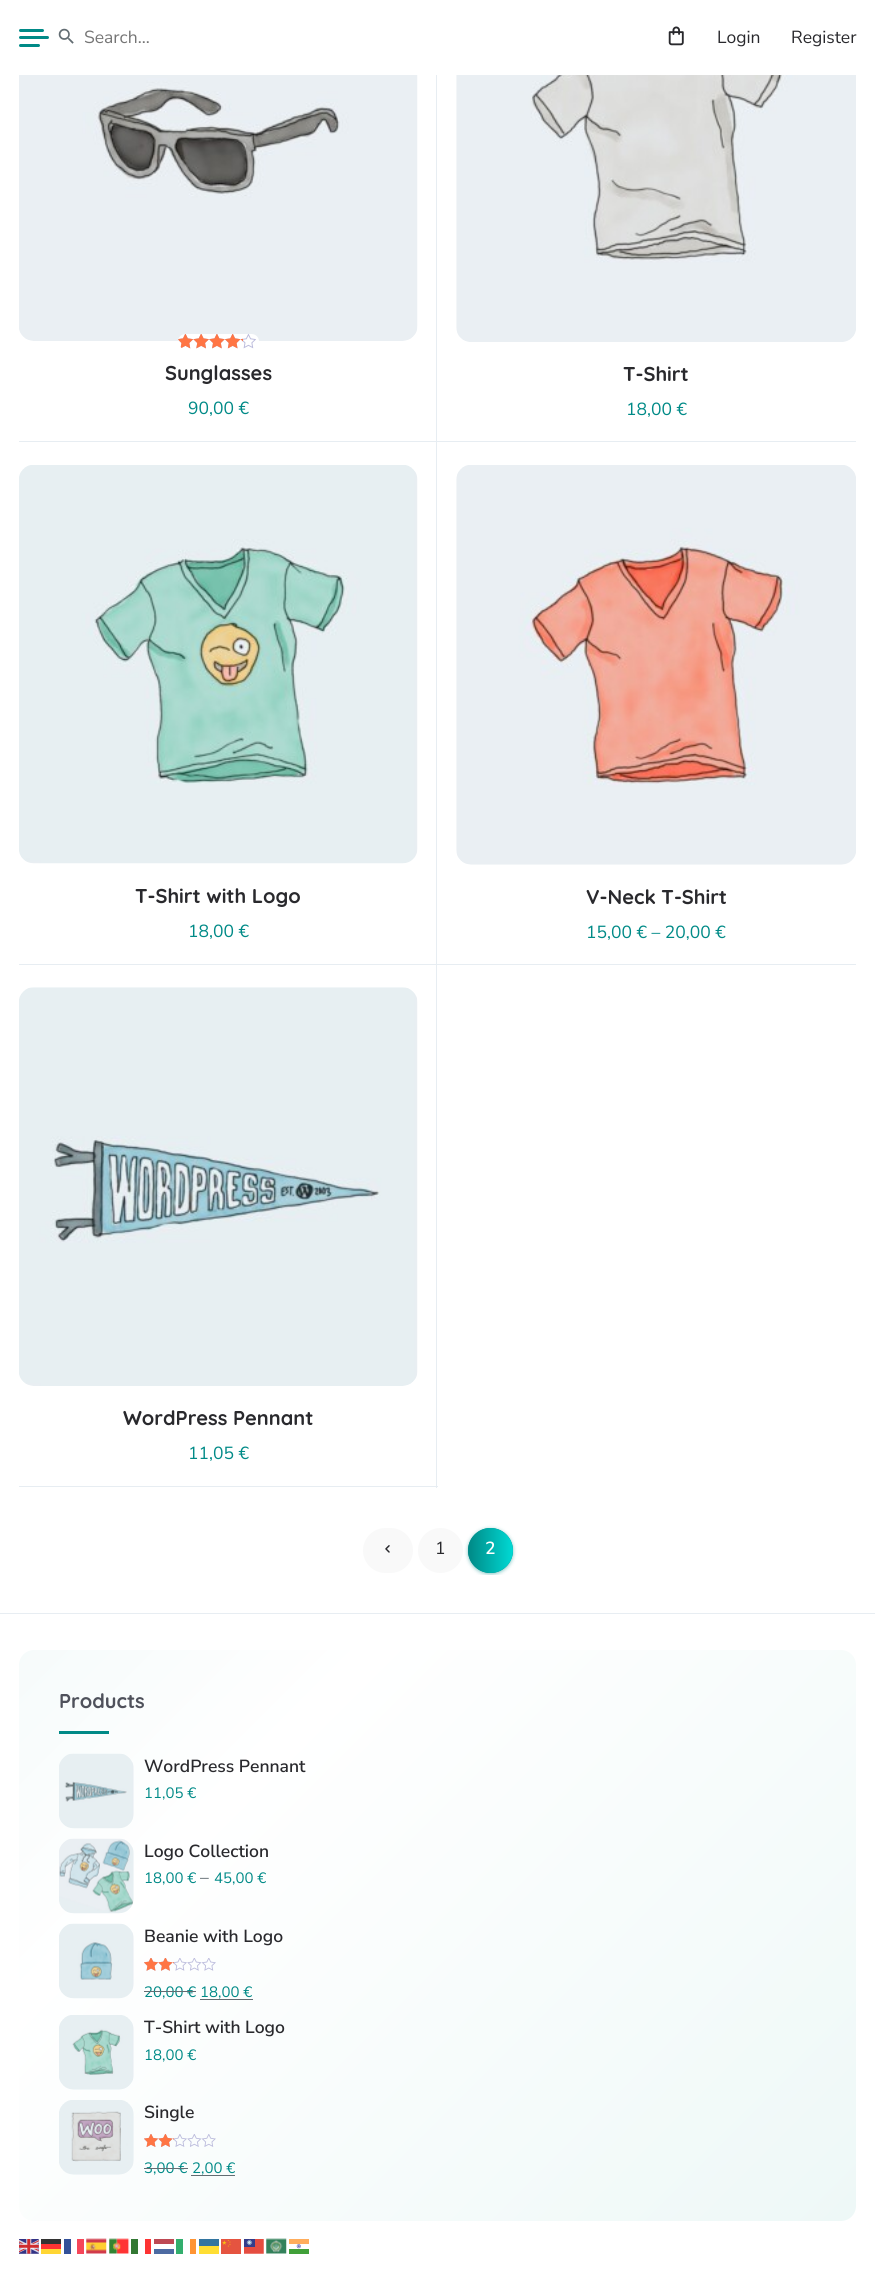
#include <cairo/cairo.h>
#include <math.h>
#include <stddef.h>

static cairo_t *cr;

static void rgb(unsigned color)
{
	cairo_set_source_rgb(cr, (color >> 16) / 255.0, (color >> 8 & 255) / 255.0, (color & 255) / 255.0);
}

static void rrect(double x, double y, double w, double h, double r)
{
	cairo_new_sub_path(cr);
	cairo_arc(cr, x + w - r, y + h - r, r, 0, M_PI / 2);
	cairo_arc(cr, x + r, y + h - r, r, M_PI / 2, M_PI);
	cairo_arc(cr, x + r, y + r, r, M_PI, 1.5 * M_PI);
	cairo_arc(cr, x + w - r, y + r, r, 1.5 * M_PI, 2 * M_PI);
	cairo_close_path(cr);
}

static void soft_shadow(double x, double y, double w, double h, double r, double blur, double alpha)
{
	cairo_push_group_with_content(cr, CAIRO_CONTENT_ALPHA);
	cairo_set_operator(cr, CAIRO_OPERATOR_SOURCE);
	for (int i = 15; i >= -15 && fmin(w, h) + blur * i / 3 > 0; i -= 2) {
		double e = blur * i / 6;
		cairo_set_source_rgba(cr, 0, 0, 0, alpha * erfc((i - 1) / 8.5) / 2);
		rrect(x - e, y - e, w + 2 * e, h + 2 * e, fmax(0, fmin(r + e + blur * .6, fmin(w, h) / 2 + e)));
		cairo_fill(cr);
	}
	cairo_pattern_t *soft = cairo_pop_group(cr);
	cairo_mask(cr, soft);
	cairo_pattern_destroy(soft);
}

static void image(const char *path, double x, double y, double w, double h)
{
	cairo_surface_t *image = cairo_image_surface_create_from_png(path);
	cairo_save(cr);
	cairo_set_source_surface(cr, image, x, y);
	cairo_rectangle(cr, x, y, w, h);
	cairo_fill(cr);
	cairo_restore(cr);
	cairo_surface_destroy(image);
}

int main(void) {
	cairo_surface_t *surface = cairo_image_surface_create(CAIRO_FORMAT_RGB24, 875, 2279);
	cr = cairo_create(surface);
	cairo_font_options_t *options = cairo_font_options_create();
	cairo_font_options_set_hint_metrics(options, CAIRO_HINT_METRICS_OFF);
	cairo_font_options_set_hint_style(options, CAIRO_HINT_STYLE_NONE);
	cairo_set_font_options(cr, options);
	cairo_set_miter_limit(cr, 4);
	cairo_pattern_t *gradient;
	rgb(0xffffff);
	cairo_paint(cr);
	rgb(0x008a87);
	rrect(19, 29, 25, 3, 1.5);
	cairo_fill(cr);
	rrect(19, 36, 30, 3, 1.5);
	cairo_fill(cr);
	rrect(19, 44, 21, 3, 1.5);
	cairo_fill(cr);
	image("img/1.png", 58, 28, 16, 16);
	image("img/2.png", 668, 26, 16, 20);
	rgb(0xe7edf2);
	cairo_rectangle(cr, 436, 75, 1, 1413);
	cairo_fill(cr);
	cairo_rectangle(cr, 19, 441, 837, 1);
	cairo_fill(cr);
	image("img/3.png", 19, 75, 399, 266);
	rgb(0xffffff);
	rrect(178, 334, 81, 15, 7.5);
	cairo_fill(cr);
	image("img/4.png", 178, 334, 78, 15);
	image("img/5.png", 178, 334, 65, 15);
	image("img/6.png", 456, 75, 400, 267);
	rgb(0xe7edf2);
	cairo_rectangle(cr, 19, 964, 837, 1);
	cairo_fill(cr);
	image("img/7.png", 19, 465, 399, 399);
	image("img/8.png", 456, 465, 400, 400);
	cairo_rectangle(cr, 19, 1486, 419, 1);
	cairo_fill(cr);
	image("img/9.png", 19, 987, 399, 399);
	rgb(0xf9f9f9);
	rrect(363, 1528, 50, 45, 22.5);
	cairo_fill(cr);
	image("img/10.png", 385, 1545, 5, 8);
	cairo_arc(cr, 440.5, 1550.5, 22.5, 0, 2 * M_PI);
	cairo_fill(cr);
	cairo_save(cr);
	cairo_rectangle(cr, 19, 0, 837, 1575);
	cairo_clip(cr);
	rgb(0x008a87);
	soft_shadow(468, 1529, 45, 45, 22.5, 2, 0.5);
	cairo_restore(cr);
	rgb(0x008a87);
	cairo_arc(cr, 490.5, 1550.5, 22.5, 0, 2 * M_PI);
	cairo_fill(cr);
	cairo_save(cr);
	rrect(468, 1528, 45, 45, 22.5);
	cairo_clip(cr);
	gradient = cairo_pattern_create_linear(384, 1550, 469, 1550);
	cairo_pattern_add_color_stop_rgba(gradient, 0, 0, 0.541, 0.529, 1);
	cairo_pattern_add_color_stop_rgba(gradient, 0.5, 0, 0.843, 0.824, 1);
	cairo_pattern_add_color_stop_rgba(gradient, 1, 0, 0.541, 0.529, 1);
	cairo_set_source(cr, gradient);
	cairo_pattern_destroy(gradient);
	cairo_rectangle(cr, 468, 1544, 1, 13);
	cairo_fill(cr);
	gradient = cairo_pattern_create_linear(469, 1550, 554, 1550);
	cairo_pattern_add_color_stop_rgba(gradient, 0, 0, 0.541, 0.529, 1);
	cairo_pattern_add_color_stop_rgba(gradient, 0.5, 0, 0.843, 0.824, 1);
	cairo_pattern_add_color_stop_rgba(gradient, 1, 0, 0.541, 0.529, 1);
	cairo_set_source(cr, gradient);
	cairo_pattern_destroy(gradient);
	cairo_new_path(cr);
	cairo_move_to(cr, 469, 1528);
	cairo_line_to(cr, 490.5, 1528);
	cairo_curve_to(cr, 503, 1528, 513, 1538, 513, 1550.5);
	cairo_curve_to(cr, 513, 1563, 503, 1573, 490.5, 1573);
	cairo_line_to(cr, 469, 1573);
	cairo_close_path(cr);
	cairo_fill(cr);
	cairo_restore(cr);
	rgb(0xe7edf2);
	cairo_rectangle(cr, 0, 1613, 875, 1);
	cairo_fill(cr);
	gradient = cairo_pattern_create_linear(85, 1583, 790, 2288);
	cairo_pattern_add_color_stop_rgba(gradient, 0, 0.965, 0.984, 0.984, 1);
	cairo_pattern_add_color_stop_rgba(gradient, 0.25, 1, 1, 1, 1);
	cairo_pattern_add_color_stop_rgba(gradient, 1, 0.933, 0.973, 0.969, 1);
	cairo_set_source(cr, gradient);
	cairo_pattern_destroy(gradient);
	rrect(19, 1650, 837, 571, 15);
	cairo_fill(cr);
	rgb(0x008a87);
	cairo_rectangle(cr, 59, 1731, 50, 3);
	cairo_fill(cr);
	image("img/11.png", 59, 1753, 75, 76);
	image("img/12.png", 59, 1838, 75, 76);
	image("img/13.png", 59, 1923, 75, 76);
	image("img/14.png", 144, 1958, 72, 13);
	image("img/15.png", 144, 1958, 30, 13);
	rgb(0x626c72);
	cairo_rectangle(cr, 200, 1999, 53, 1);
	cairo_fill(cr);
	image("img/16.png", 59, 2015, 75, 75);
	image("img/17.png", 59, 2100, 75, 75);
	image("img/18.png", 144, 2134, 72, 13);
	image("img/19.png", 144, 2134, 30, 13);
	cairo_rectangle(cr, 191, 2175, 44, 1);
	cairo_fill(cr);
	image("img/20.png", 19, 2239, 20, 15);
	rgb(0x333333);
	cairo_rectangle(cr, 41, 2239, 20, 5);
	cairo_fill(cr);
	rgb(0x335199);
	cairo_rectangle(cr, 64, 2239, 7, 15);
	cairo_fill(cr);
	cairo_set_source_rgba(cr, 0.953, 0.094, 0.188, 0.8);
	cairo_rectangle(cr, 77, 2239, 7, 15);
	cairo_fill(cr);
	image("img/21.png", 86, 2238, 21, 16);
	image("img/22.png", 109, 2238, 21, 16);
	cairo_set_source_rgba(cr, 0, 0.341, 0, 0.8);
	cairo_rectangle(cr, 131, 2239, 7, 15);
	cairo_fill(cr);
	rgb(0xfd3333);
	cairo_rectangle(cr, 145, 2239, 6, 15);
	cairo_fill(cr);
	rgb(0xbe4953);
	cairo_rectangle(cr, 154, 2239, 20, 5);
	cairo_fill(cr);
	cairo_set_source_rgba(cr, 0, 0.604, 0.286, 0.8);
	cairo_rectangle(cr, 176, 2239, 7, 15);
	cairo_fill(cr);
	cairo_set_source_rgba(cr, 1, 0.475, 0, 0.8);
	cairo_rectangle(cr, 190, 2239, 6, 15);
	cairo_fill(cr);
	cairo_set_source_rgba(cr, 1, 0.835, 0, 0.8);
	cairo_rectangle(cr, 199, 2239, 20, 15);
	cairo_fill(cr);
	image("img/23.png", 266, 2238, 21, 16);
	cairo_set_source_rgba(cr, 1, 0, 0, 0.8);
	cairo_rectangle(cr, 41, 2244, 20, 5);
	cairo_fill(cr);
	cairo_set_source_rgba(cr, 0, 0.357, 0.733, 0.8);
	cairo_rectangle(cr, 199, 2239, 20, 7);
	cairo_fill(cr);
	image("img/24.png", 221, 2239, 20, 15);
	image("img/25.png", 244, 2239, 20, 15);
	image("img/26.png", 289, 2239, 20, 15);
	cairo_set_source_rgba(cr, 1, 0.8, 0, 0.8);
	cairo_rectangle(cr, 41, 2249, 20, 5);
	cairo_fill(cr);
	cairo_set_source_rgba(cr, 0.129, 0.275, 0.545, 0.8);
	cairo_rectangle(cr, 154, 2249, 20, 5);
	cairo_fill(cr);
	cairo_select_font_face(cr, "Nunito Sans", CAIRO_FONT_SLANT_NORMAL, CAIRO_FONT_WEIGHT_NORMAL);
	cairo_set_font_size(cr, 17.5);
	rgb(0x757575);
	cairo_move_to(cr, 84, 43);
	cairo_show_text(cr, "Search...");
	rgb(0x29292d);
	cairo_move_to(cr, 717, 43);
	cairo_show_text(cr, "Login");
	cairo_move_to(cr, 791, 43);
	cairo_show_text(cr, "Register");
	cairo_select_font_face(cr, "Quicksand Light", CAIRO_FONT_SLANT_NORMAL, CAIRO_FONT_WEIGHT_NORMAL);
	cairo_set_font_size(cr, 20);
	cairo_move_to(cr, 165, 380);
	cairo_show_text(cr, "Sunglasses");
	cairo_select_font_face(cr, "Nunito Sans", CAIRO_FONT_SLANT_NORMAL, CAIRO_FONT_WEIGHT_NORMAL);
	cairo_set_font_size(cr, 17.5);
	rgb(0x008a87);
	cairo_move_to(cr, 188, 414);
	cairo_show_text(cr, "90,00 €");
	cairo_select_font_face(cr, "Quicksand Light", CAIRO_FONT_SLANT_NORMAL, CAIRO_FONT_WEIGHT_NORMAL);
	cairo_set_font_size(cr, 20);
	rgb(0x29292d);
	cairo_move_to(cr, 623, 381);
	cairo_show_text(cr, "T-Shirt");
	cairo_select_font_face(cr, "Nunito Sans", CAIRO_FONT_SLANT_NORMAL, CAIRO_FONT_WEIGHT_NORMAL);
	cairo_set_font_size(cr, 17.5);
	rgb(0x008a87);
	cairo_move_to(cr, 626, 415);
	cairo_show_text(cr, "18,00 €");
	cairo_select_font_face(cr, "Quicksand Light", CAIRO_FONT_SLANT_NORMAL, CAIRO_FONT_WEIGHT_NORMAL);
	cairo_set_font_size(cr, 20);
	rgb(0x29292d);
	cairo_move_to(cr, 135, 903);
	cairo_show_text(cr, "T-Shirt with Logo");
	cairo_select_font_face(cr, "Nunito Sans", CAIRO_FONT_SLANT_NORMAL, CAIRO_FONT_WEIGHT_NORMAL);
	cairo_set_font_size(cr, 17.5);
	rgb(0x008a87);
	cairo_move_to(cr, 188, 937);
	cairo_show_text(cr, "18,00 €");
	cairo_select_font_face(cr, "Quicksand Light", CAIRO_FONT_SLANT_NORMAL, CAIRO_FONT_WEIGHT_NORMAL);
	cairo_set_font_size(cr, 20);
	rgb(0x29292d);
	cairo_move_to(cr, 586, 904);
	cairo_show_text(cr, "V-Neck T-Shirt");
	cairo_select_font_face(cr, "Nunito Sans", CAIRO_FONT_SLANT_NORMAL, CAIRO_FONT_WEIGHT_NORMAL);
	cairo_set_font_size(cr, 17.5);
	rgb(0x008a87);
	cairo_move_to(cr, 586, 938);
	cairo_show_text(cr, "15,00 € – 20,00 €");
	cairo_select_font_face(cr, "Quicksand Light", CAIRO_FONT_SLANT_NORMAL, CAIRO_FONT_WEIGHT_NORMAL);
	cairo_set_font_size(cr, 20);
	rgb(0x29292d);
	cairo_move_to(cr, 123, 1425);
	cairo_show_text(cr, "WordPress Pennant");
	cairo_select_font_face(cr, "Nunito Sans", CAIRO_FONT_SLANT_NORMAL, CAIRO_FONT_WEIGHT_NORMAL);
	cairo_set_font_size(cr, 17.5);
	rgb(0x008a87);
	cairo_move_to(cr, 188, 1459);
	cairo_show_text(cr, "11,05 €");
	rgb(0x29292d);
	cairo_move_to(cr, 435, 1554);
	cairo_show_text(cr, "1");
	cairo_select_font_face(cr, "Nunito Sans SemiBold", CAIRO_FONT_SLANT_NORMAL, CAIRO_FONT_WEIGHT_NORMAL);
	rgb(0xffffff);
	cairo_move_to(cr, 485, 1554);
	cairo_show_text(cr, "2");
	cairo_select_font_face(cr, "Quicksand Light", CAIRO_FONT_SLANT_NORMAL, CAIRO_FONT_WEIGHT_NORMAL);
	cairo_set_font_size(cr, 20);
	rgb(0x4f515b);
	cairo_move_to(cr, 59, 1708);
	cairo_show_text(cr, "Products");
	cairo_select_font_face(cr, "Nunito Sans SemiBold", CAIRO_FONT_SLANT_NORMAL, CAIRO_FONT_WEIGHT_NORMAL);
	cairo_set_font_size(cr, 17.5);
	rgb(0x29292d);
	cairo_move_to(cr, 144, 1772);
	cairo_show_text(cr, "WordPress Pennant");
	cairo_select_font_face(cr, "Nunito Sans", CAIRO_FONT_SLANT_NORMAL, CAIRO_FONT_WEIGHT_NORMAL);
	cairo_set_font_size(cr, 15);
	rgb(0x008a87);
	cairo_move_to(cr, 144, 1798);
	cairo_show_text(cr, "11,05 €");
	cairo_select_font_face(cr, "Nunito Sans SemiBold", CAIRO_FONT_SLANT_NORMAL, CAIRO_FONT_WEIGHT_NORMAL);
	cairo_set_font_size(cr, 17.5);
	rgb(0x29292d);
	cairo_move_to(cr, 144, 1857);
	cairo_show_text(cr, "Logo Collection");
	cairo_select_font_face(cr, "Nunito Sans", CAIRO_FONT_SLANT_NORMAL, CAIRO_FONT_WEIGHT_NORMAL);
	cairo_set_font_size(cr, 15);
	rgb(0x008a87);
	cairo_move_to(cr, 144, 1883);
	cairo_show_text(cr, "18,00 €");
	cairo_set_font_size(cr, 17.5);
	rgb(0x626c72);
	cairo_move_to(cr, 200, 1883);
	cairo_show_text(cr, "–");
	cairo_set_font_size(cr, 15);
	rgb(0x008a87);
	cairo_move_to(cr, 214, 1883);
	cairo_show_text(cr, "45,00 €");
	cairo_select_font_face(cr, "Nunito Sans SemiBold", CAIRO_FONT_SLANT_NORMAL, CAIRO_FONT_WEIGHT_NORMAL);
	cairo_set_font_size(cr, 17.5);
	rgb(0x29292d);
	cairo_move_to(cr, 144, 1942);
	cairo_show_text(cr, "Beanie with Logo");
	cairo_select_font_face(cr, "Nunito Sans", CAIRO_FONT_SLANT_NORMAL, CAIRO_FONT_WEIGHT_NORMAL);
	cairo_set_font_size(cr, 15);
	rgb(0x008a87);
	cairo_move_to(cr, 144, 1997);
	cairo_show_text(cr, "20,00");
	rgb(0x626c72);
	cairo_rectangle(cr, 144, 1991, 44, 1);
	cairo_fill(cr);
	rgb(0x008a87);
	cairo_move_to(cr, 187, 1997);
	cairo_show_text(cr, "€");
	rgb(0x626c72);
	cairo_rectangle(cr, 188, 1991, 8, 1);
	cairo_fill(cr);
	rgb(0x008a87);
	cairo_move_to(cr, 200, 1997);
	cairo_show_text(cr, "18,00 €");
	cairo_select_font_face(cr, "Nunito Sans SemiBold", CAIRO_FONT_SLANT_NORMAL, CAIRO_FONT_WEIGHT_NORMAL);
	cairo_set_font_size(cr, 17.5);
	rgb(0x29292d);
	cairo_move_to(cr, 144, 2033);
	cairo_show_text(cr, "T-Shirt with Logo");
	cairo_select_font_face(cr, "Nunito Sans", CAIRO_FONT_SLANT_NORMAL, CAIRO_FONT_WEIGHT_NORMAL);
	cairo_set_font_size(cr, 15);
	rgb(0x008a87);
	cairo_move_to(cr, 144, 2060);
	cairo_show_text(cr, "18,00 €");
	cairo_select_font_face(cr, "Nunito Sans SemiBold", CAIRO_FONT_SLANT_NORMAL, CAIRO_FONT_WEIGHT_NORMAL);
	cairo_set_font_size(cr, 17.5);
	rgb(0x29292d);
	cairo_move_to(cr, 144, 2118);
	cairo_show_text(cr, "Single");
	cairo_select_font_face(cr, "Nunito Sans", CAIRO_FONT_SLANT_NORMAL, CAIRO_FONT_WEIGHT_NORMAL);
	cairo_set_font_size(cr, 15);
	rgb(0x008a87);
	cairo_move_to(cr, 144, 2173);
	cairo_show_text(cr, "3,00 €");
	rgb(0x626c72);
	cairo_rectangle(cr, 144, 2168, 44, 1);
	cairo_fill(cr);
	rgb(0x008a87);
	cairo_move_to(cr, 192, 2173);
	cairo_show_text(cr, "2,00 €");
	cairo_surface_write_to_png(surface, "page.png");
	cairo_font_options_destroy(options);
	cairo_destroy(cr);
	cairo_surface_destroy(surface);
	return 0;
}
